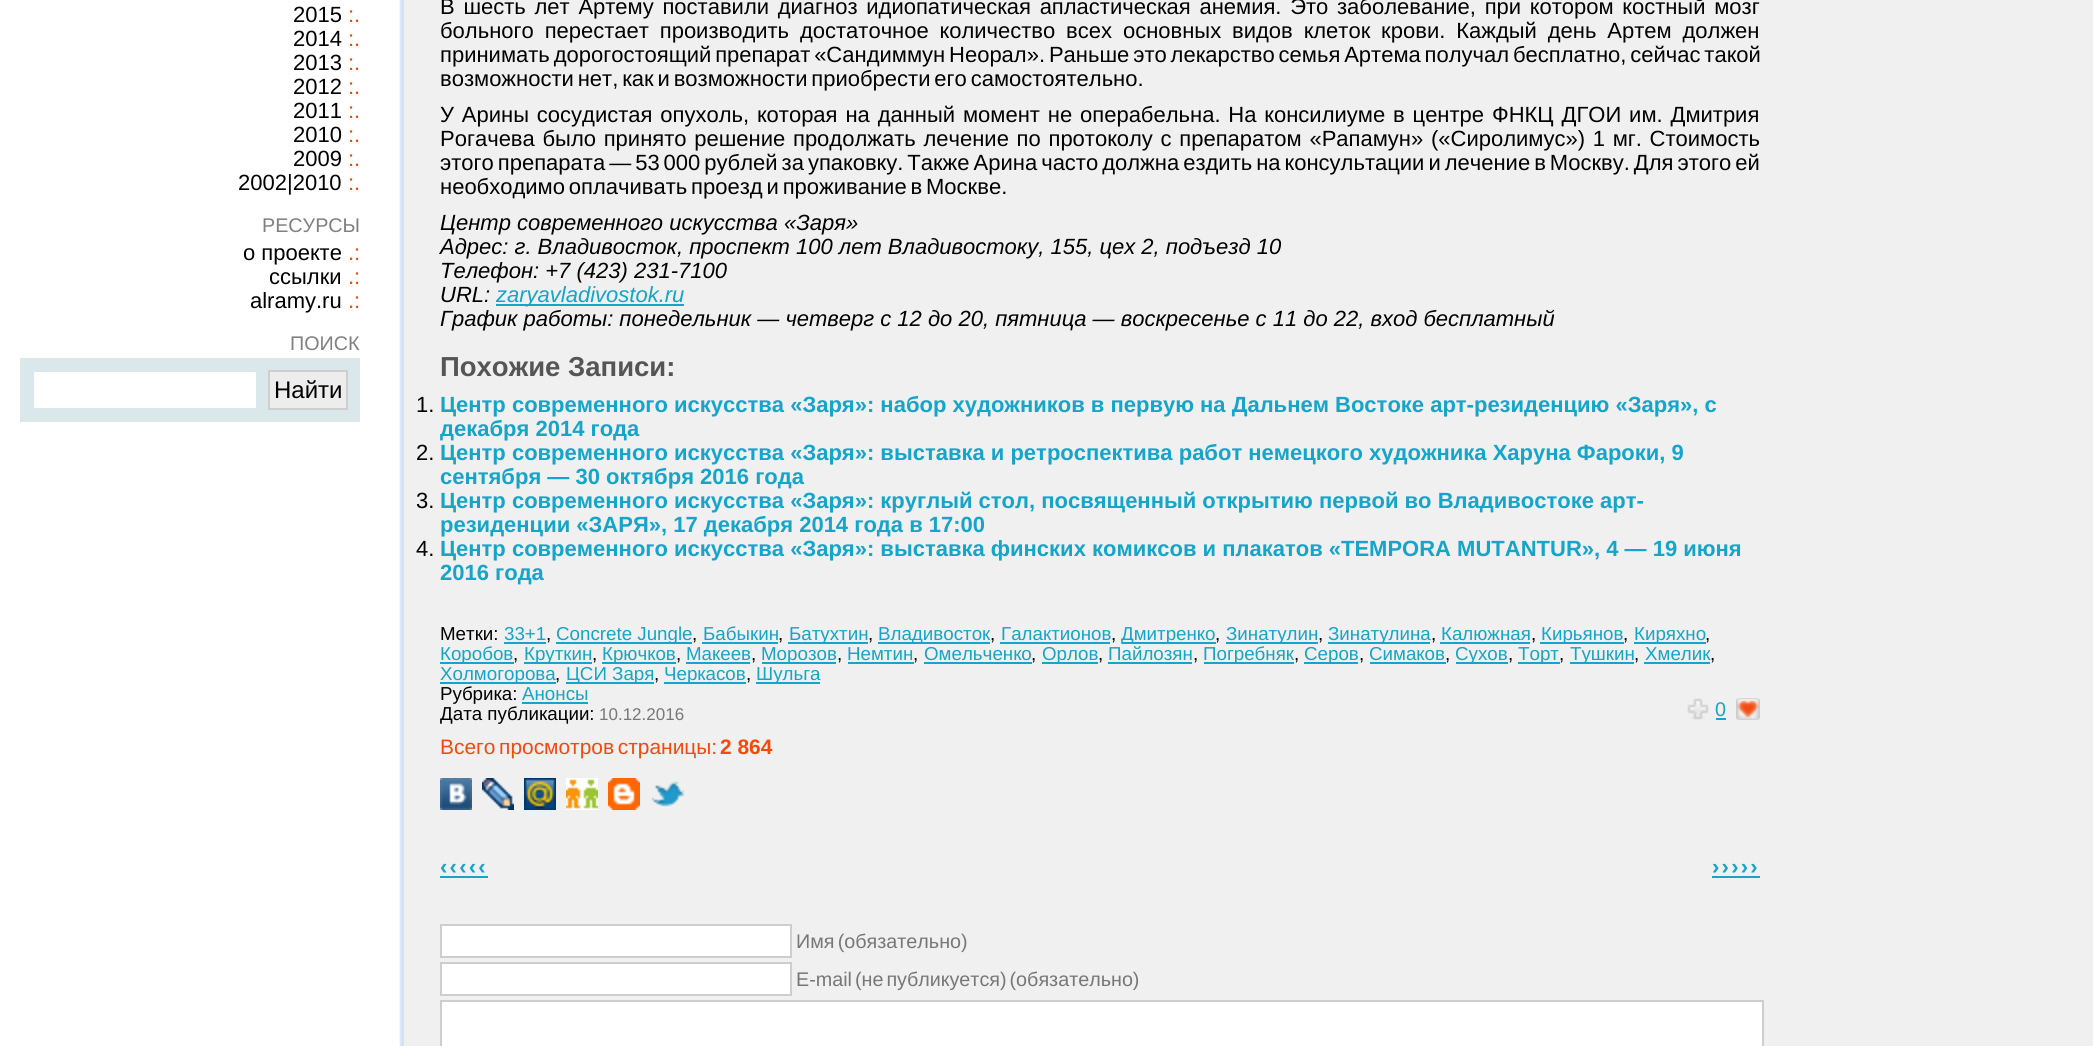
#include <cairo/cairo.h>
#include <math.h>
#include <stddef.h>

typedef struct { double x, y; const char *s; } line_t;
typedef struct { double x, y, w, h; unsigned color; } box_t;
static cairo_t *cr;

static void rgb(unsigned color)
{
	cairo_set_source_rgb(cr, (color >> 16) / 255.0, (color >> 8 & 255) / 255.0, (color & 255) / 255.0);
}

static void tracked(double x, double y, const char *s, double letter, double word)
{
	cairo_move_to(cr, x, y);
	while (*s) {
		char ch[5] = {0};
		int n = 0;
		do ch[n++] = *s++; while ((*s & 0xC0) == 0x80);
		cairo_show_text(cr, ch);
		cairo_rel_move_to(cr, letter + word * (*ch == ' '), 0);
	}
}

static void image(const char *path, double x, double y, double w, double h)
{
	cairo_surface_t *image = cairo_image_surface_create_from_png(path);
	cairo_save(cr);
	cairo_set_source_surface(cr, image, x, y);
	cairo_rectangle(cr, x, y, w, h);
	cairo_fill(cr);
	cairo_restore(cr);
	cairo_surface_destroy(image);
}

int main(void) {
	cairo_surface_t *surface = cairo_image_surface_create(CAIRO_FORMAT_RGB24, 2093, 1046);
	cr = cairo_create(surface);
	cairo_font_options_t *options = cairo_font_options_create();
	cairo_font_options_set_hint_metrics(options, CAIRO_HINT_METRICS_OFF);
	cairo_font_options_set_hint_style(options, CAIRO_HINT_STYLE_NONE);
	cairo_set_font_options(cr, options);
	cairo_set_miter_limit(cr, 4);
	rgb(0xf0f0f0);
	cairo_paint(cr);
	image("img/1.png", 0, 0, 404, 1046);
	rgb(0xdae8eb);
	cairo_rectangle(cr, 20, 358, 340, 64);
	cairo_fill(cr);
	rgb(0xffffff);
	cairo_rectangle(cr, 34, 372, 222, 36);
	cairo_fill(cr);
	rgb(0xededed);
	cairo_rectangle(cr, 269, 371, 78, 38);
	cairo_fill_preserve(cr);
	rgb(0xcecece);
	cairo_stroke(cr);
	{
		static const box_t items[] = {
			{496, 304, 188, 2, 0x15a4ca},
			{504, 642, 42, 2, 0x15a4ca},
			{556, 642, 136, 2, 0x15a4ca},
			{702, 642, 76, 2, 0x15a4ca},
			{788, 642, 80, 2, 0x15a4ca},
			{878, 642, 112, 2, 0x15a4ca},
			{1000, 642, 110, 2, 0x15a4ca},
			{1122, 642, 94, 2, 0x15a4ca},
			{1226, 642, 92, 2, 0x15a4ca},
			{1328, 642, 102, 2, 0x15a4ca},
			{1440, 642, 90, 2, 0x15a4ca},
			{1540, 642, 84, 2, 0x15a4ca},
			{1634, 642, 72, 2, 0x15a4ca},
			{440, 662, 74, 2, 0x15a4ca},
			{524, 662, 68, 2, 0x15a4ca},
			{602, 662, 74, 2, 0x15a4ca},
			{686, 662, 64, 2, 0x15a4ca},
			{762, 662, 74, 2, 0x15a4ca},
			{848, 662, 66, 2, 0x15a4ca},
			{924, 662, 108, 2, 0x15a4ca},
			{1042, 662, 56, 2, 0x15a4ca},
			{1108, 662, 84, 2, 0x15a4ca},
			{1204, 662, 90, 2, 0x15a4ca},
			{1304, 662, 54, 2, 0x15a4ca},
			{1370, 662, 76, 2, 0x15a4ca},
			{1456, 662, 52, 2, 0x15a4ca},
			{1518, 662, 42, 2, 0x15a4ca},
			{1570, 662, 64, 2, 0x15a4ca},
			{1644, 662, 66, 2, 0x15a4ca},
			{440, 682, 116, 2, 0x15a4ca},
			{566, 682, 88, 2, 0x15a4ca},
			{664, 682, 82, 2, 0x15a4ca},
			{756, 682, 64, 2, 0x15a4ca},
			{522, 702, 66, 2, 0x15a4ca},
		};
		for (size_t i = 0; i < sizeof items / sizeof *items; i++) {
			rgb(items[i].color);
			cairo_rectangle(cr, items[i].x, items[i].y, items[i].w, items[i].h);
			cairo_fill(cr);
		}
	}
	image("img/2.png", 1687, 698, 22, 22);
	cairo_rectangle(cr, 1716, 718, 10, 2);
	cairo_fill(cr);
	image("img/3.png", 1736, 698, 24, 22);
	image("img/4.png", 440, 778, 32, 32);
	image("img/5.png", 482, 778, 32, 32);
	image("img/6.png", 524, 778, 32, 32);
	image("img/7.png", 566, 778, 32, 32);
	image("img/8.png", 608, 778, 32, 32);
	image("img/9.png", 652, 781, 32, 27);
	cairo_rectangle(cr, 440, 876, 48, 2);
	cairo_fill(cr);
	cairo_rectangle(cr, 1712, 876, 48, 2);
	cairo_fill(cr);
	rgb(0xffffff);
	cairo_rectangle(cr, 441, 925, 350, 32);
	cairo_fill_preserve(cr);
	rgb(0xcecece);
	cairo_stroke(cr);
	rgb(0xffffff);
	cairo_rectangle(cr, 441, 963, 350, 32);
	cairo_fill_preserve(cr);
	rgb(0xcecece);
	cairo_stroke(cr);
	rgb(0xffffff);
	cairo_rectangle(cr, 441, 1001, 1322, 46);
	cairo_fill_preserve(cr);
	rgb(0xcecece);
	cairo_stroke(cr);
	cairo_select_font_face(cr, "Liberation Sans", CAIRO_FONT_SLANT_NORMAL, CAIRO_FONT_WEIGHT_NORMAL);
	cairo_set_font_size(cr, 22);
	rgb(0x000000);
	cairo_move_to(cr, 293, 22);
	cairo_show_text(cr, "2015");
	rgb(0xf2490c);
	cairo_move_to(cr, 348, 22);
	cairo_show_text(cr, ":.");
	rgb(0x000000);
	cairo_move_to(cr, 293, 46);
	cairo_show_text(cr, "2014");
	rgb(0xf2490c);
	cairo_move_to(cr, 348, 46);
	cairo_show_text(cr, ":.");
	rgb(0x000000);
	cairo_move_to(cr, 293, 70);
	cairo_show_text(cr, "2013");
	rgb(0xf2490c);
	cairo_move_to(cr, 348, 70);
	cairo_show_text(cr, ":.");
	rgb(0x000000);
	cairo_move_to(cr, 293, 94);
	cairo_show_text(cr, "2012");
	rgb(0xf2490c);
	cairo_move_to(cr, 348, 94);
	cairo_show_text(cr, ":.");
	rgb(0x000000);
	cairo_move_to(cr, 293, 118);
	cairo_show_text(cr, "2011");
	rgb(0xf2490c);
	cairo_move_to(cr, 348, 118);
	cairo_show_text(cr, ":.");
	rgb(0x000000);
	cairo_move_to(cr, 293, 142);
	cairo_show_text(cr, "2010");
	rgb(0xf2490c);
	cairo_move_to(cr, 348, 142);
	cairo_show_text(cr, ":.");
	rgb(0x000000);
	cairo_move_to(cr, 293, 166);
	cairo_show_text(cr, "2009");
	rgb(0xf2490c);
	cairo_move_to(cr, 348, 166);
	cairo_show_text(cr, ":.");
	rgb(0x000000);
	cairo_move_to(cr, 238, 190);
	cairo_show_text(cr, "2002|2010");
	rgb(0xf2490c);
	cairo_move_to(cr, 348, 190);
	cairo_show_text(cr, ":.");
	cairo_set_font_size(cr, 19.75);
	rgb(0x808080);
	cairo_move_to(cr, 262, 232);
	cairo_show_text(cr, "РЕСУРСЫ");
	cairo_set_font_size(cr, 22);
	rgb(0x000000);
	cairo_move_to(cr, 243, 260);
	cairo_show_text(cr, "о проекте");
	rgb(0xf2490c);
	cairo_move_to(cr, 348, 260);
	cairo_show_text(cr, ".:");
	rgb(0x000000);
	cairo_move_to(cr, 269, 284);
	cairo_show_text(cr, "ссылки");
	rgb(0xf2490c);
	cairo_move_to(cr, 348, 284);
	cairo_show_text(cr, ".:");
	rgb(0x000000);
	cairo_move_to(cr, 250, 308);
	cairo_show_text(cr, "alramy.ru");
	rgb(0xf2490c);
	cairo_move_to(cr, 348, 308);
	cairo_show_text(cr, ".:");
	cairo_set_font_size(cr, 19.75);
	rgb(0x808080);
	cairo_move_to(cr, 290, 350);
	cairo_show_text(cr, "ПОИСК");
	cairo_set_font_size(cr, 24);
	rgb(0x000000);
	cairo_move_to(cr, 274, 398);
	cairo_show_text(cr, "Найти");
	cairo_set_font_size(cr, 22);
	tracked(440, 14, "В шесть лет Артему поставили диагноз идиопатическая апластическая анемия. Это заболевание, при котором костный мозг", 0, 2.6);
	tracked(440, 38, "больного перестает производить достаточное количество всех основных видов клеток крови. Каждый день Артем должен", 0, 4.75);
	tracked(440, 62, "принимать дорогостоящий препарат «Сандиммун Неорал». Раньше это лекарство семья Артема получал бесплатно, сейчас такой", 0, -2.25);
	tracked(440, 86, "возможности нет, как и возможности приобрести его самостоятельно.", 0, -2.25);
	tracked(440, 122, "У Арины сосудистая опухоль, которая на данный момент не операбельна. На консилиуме в центре ФНКЦ ДГОИ им. Дмитрия", 0, 1.75);
	tracked(440, 146, "Рогачева было принято решение продолжать лечение по протоколу с препаратом «Рапамун» («Сиролимус») 1 мг. Стоимость", 0, 1.6);
	tracked(440, 170, "этого препарата — 53 000 рублей за упаковку. Также Арина часто должна ездить на консультации и лечение в Москву. Для этого ей", 0, -2.1);
	tracked(440, 194, "необходимо оплачивать проезд и проживание в Москве.", 0, -2.25);
	cairo_select_font_face(cr, "Liberation Sans", CAIRO_FONT_SLANT_ITALIC, CAIRO_FONT_WEIGHT_NORMAL);
	{
		static const line_t items[] = {
			{440, 230, "Центр современного искусства «Заря»"},
			{440, 254, "Адрес: г. Владивосток, проспект 100 лет Владивостоку, 155, цех 2, подъезд 10"},
			{440, 278, "Телефон: +7 (423) 231-7100"},
			{440, 302, "URL:"},
		};
		for (size_t i = 0; i < sizeof items / sizeof *items; i++) {
			cairo_move_to(cr, items[i].x, items[i].y);
			cairo_show_text(cr, items[i].s);
		}
	}
	rgb(0x15a4ca);
	cairo_move_to(cr, 496, 302);
	cairo_show_text(cr, "zaryavladivostok.ru");
	rgb(0x000000);
	cairo_move_to(cr, 440, 326);
	cairo_show_text(cr, "График работы: понедельник — четверг с 12 до 20, пятница — воскресенье с 11 до 22, вход бесплатный");
	cairo_select_font_face(cr, "Liberation Sans", CAIRO_FONT_SLANT_NORMAL, CAIRO_FONT_WEIGHT_BOLD);
	cairo_set_font_size(cr, 27.5);
	rgb(0x555555);
	cairo_move_to(cr, 440, 376);
	cairo_show_text(cr, "Похожие Записи:");
	cairo_select_font_face(cr, "Liberation Sans", CAIRO_FONT_SLANT_NORMAL, CAIRO_FONT_WEIGHT_NORMAL);
	cairo_set_font_size(cr, 22);
	rgb(0x000000);
	cairo_move_to(cr, 416, 412);
	cairo_show_text(cr, "1.");
	cairo_select_font_face(cr, "Liberation Sans", CAIRO_FONT_SLANT_NORMAL, CAIRO_FONT_WEIGHT_BOLD);
	rgb(0x15a4ca);
	cairo_move_to(cr, 440, 412);
	cairo_show_text(cr, "Центр современного искусства «Заря»: набор художников в первую на Дальнем Востоке арт-резиденцию «Заря», с");
	cairo_move_to(cr, 440, 436);
	cairo_show_text(cr, "декабря 2014 года");
	cairo_select_font_face(cr, "Liberation Sans", CAIRO_FONT_SLANT_NORMAL, CAIRO_FONT_WEIGHT_NORMAL);
	rgb(0x000000);
	cairo_move_to(cr, 416, 460);
	cairo_show_text(cr, "2.");
	cairo_select_font_face(cr, "Liberation Sans", CAIRO_FONT_SLANT_NORMAL, CAIRO_FONT_WEIGHT_BOLD);
	rgb(0x15a4ca);
	cairo_move_to(cr, 440, 460);
	cairo_show_text(cr, "Центр современного искусства «Заря»: выставка и ретроспектива работ немецкого художника Харуна Фароки, 9");
	cairo_move_to(cr, 440, 484);
	cairo_show_text(cr, "сентября — 30 октября 2016 года");
	cairo_select_font_face(cr, "Liberation Sans", CAIRO_FONT_SLANT_NORMAL, CAIRO_FONT_WEIGHT_NORMAL);
	rgb(0x000000);
	cairo_move_to(cr, 416, 508);
	cairo_show_text(cr, "3.");
	cairo_select_font_face(cr, "Liberation Sans", CAIRO_FONT_SLANT_NORMAL, CAIRO_FONT_WEIGHT_BOLD);
	rgb(0x15a4ca);
	cairo_move_to(cr, 440, 508);
	cairo_show_text(cr, "Центр современного искусства «Заря»: круглый стол, посвященный открытию первой во Владивостоке арт-");
	cairo_move_to(cr, 440, 532);
	cairo_show_text(cr, "резиденции «ЗАРЯ», 17 декабря 2014 года в 17:00");
	cairo_select_font_face(cr, "Liberation Sans", CAIRO_FONT_SLANT_NORMAL, CAIRO_FONT_WEIGHT_NORMAL);
	rgb(0x000000);
	cairo_move_to(cr, 416, 556);
	cairo_show_text(cr, "4.");
	cairo_select_font_face(cr, "Liberation Sans", CAIRO_FONT_SLANT_NORMAL, CAIRO_FONT_WEIGHT_BOLD);
	rgb(0x15a4ca);
	cairo_move_to(cr, 440, 556);
	cairo_show_text(cr, "Центр современного искусства «Заря»: выставка финских комиксов и плакатов «TEMPORA MUTANTUR», 4 — 19 июня");
	cairo_move_to(cr, 440, 580);
	cairo_show_text(cr, "2016 года");
	cairo_select_font_face(cr, "Liberation Sans", CAIRO_FONT_SLANT_NORMAL, CAIRO_FONT_WEIGHT_NORMAL);
	cairo_set_font_size(cr, 18.75);
	rgb(0x000000);
	cairo_move_to(cr, 440, 640);
	cairo_show_text(cr, "Метки:");
	rgb(0x15a4ca);
	cairo_move_to(cr, 504, 640);
	cairo_show_text(cr, "33+1");
	rgb(0x000000);
	cairo_move_to(cr, 546, 640);
	cairo_show_text(cr, ",");
	rgb(0x15a4ca);
	cairo_move_to(cr, 556, 640);
	cairo_show_text(cr, "Concrete Jungle");
	rgb(0x000000);
	cairo_move_to(cr, 692, 640);
	cairo_show_text(cr, ",");
	rgb(0x15a4ca);
	cairo_move_to(cr, 703, 640);
	cairo_show_text(cr, "Бабыкин");
	rgb(0x000000);
	cairo_move_to(cr, 778, 640);
	cairo_show_text(cr, ",");
	rgb(0x15a4ca);
	cairo_move_to(cr, 789, 640);
	cairo_show_text(cr, "Батухтин");
	rgb(0x000000);
	cairo_move_to(cr, 868, 640);
	cairo_show_text(cr, ",");
	rgb(0x15a4ca);
	cairo_move_to(cr, 878, 640);
	cairo_show_text(cr, "Владивосток");
	rgb(0x000000);
	cairo_move_to(cr, 990, 640);
	cairo_show_text(cr, ",");
	rgb(0x15a4ca);
	cairo_move_to(cr, 1001, 640);
	cairo_show_text(cr, "Галактионов");
	rgb(0x000000);
	cairo_move_to(cr, 1111, 640);
	cairo_show_text(cr, ",");
	rgb(0x15a4ca);
	cairo_move_to(cr, 1121, 640);
	cairo_show_text(cr, "Дмитренко");
	rgb(0x000000);
	cairo_move_to(cr, 1215, 640);
	cairo_show_text(cr, ",");
	rgb(0x15a4ca);
	cairo_move_to(cr, 1226, 640);
	cairo_show_text(cr, "Зинатулин");
	rgb(0x000000);
	cairo_move_to(cr, 1318, 640);
	cairo_show_text(cr, ",");
	rgb(0x15a4ca);
	cairo_move_to(cr, 1328, 640);
	cairo_show_text(cr, "Зинатулина");
	rgb(0x000000);
	cairo_move_to(cr, 1431, 640);
	cairo_show_text(cr, ",");
	rgb(0x15a4ca);
	cairo_move_to(cr, 1441, 640);
	cairo_show_text(cr, "Калюжная");
	rgb(0x000000);
	cairo_move_to(cr, 1531, 640);
	cairo_show_text(cr, ",");
	rgb(0x15a4ca);
	cairo_move_to(cr, 1541, 640);
	cairo_show_text(cr, "Кирьянов");
	rgb(0x000000);
	cairo_move_to(cr, 1623, 640);
	cairo_show_text(cr, ",");
	rgb(0x15a4ca);
	cairo_move_to(cr, 1634, 640);
	cairo_show_text(cr, "Киряхно");
	rgb(0x000000);
	cairo_move_to(cr, 1705, 640);
	cairo_show_text(cr, ",");
	rgb(0x15a4ca);
	cairo_move_to(cr, 440, 660);
	cairo_show_text(cr, "Коробов");
	rgb(0x000000);
	cairo_move_to(cr, 513, 660);
	cairo_show_text(cr, ",");
	rgb(0x15a4ca);
	cairo_move_to(cr, 524, 660);
	cairo_show_text(cr, "Круткин");
	rgb(0x000000);
	cairo_move_to(cr, 592, 660);
	cairo_show_text(cr, ",");
	rgb(0x15a4ca);
	cairo_move_to(cr, 602, 660);
	cairo_show_text(cr, "Крючков");
	rgb(0x000000);
	cairo_move_to(cr, 676, 660);
	cairo_show_text(cr, ",");
	rgb(0x15a4ca);
	cairo_move_to(cr, 686, 660);
	cairo_show_text(cr, "Макеев");
	rgb(0x000000);
	cairo_move_to(cr, 751, 660);
	cairo_show_text(cr, ",");
	rgb(0x15a4ca);
	cairo_move_to(cr, 761, 660);
	cairo_show_text(cr, "Морозов");
	rgb(0x000000);
	cairo_move_to(cr, 837, 660);
	cairo_show_text(cr, ",");
	rgb(0x15a4ca);
	cairo_move_to(cr, 847, 660);
	cairo_show_text(cr, "Немтин");
	rgb(0x000000);
	cairo_move_to(cr, 913, 660);
	cairo_show_text(cr, ",");
	rgb(0x15a4ca);
	cairo_move_to(cr, 924, 660);
	cairo_show_text(cr, "Омельченко");
	rgb(0x000000);
	cairo_move_to(cr, 1031, 660);
	cairo_show_text(cr, ",");
	rgb(0x15a4ca);
	cairo_move_to(cr, 1042, 660);
	cairo_show_text(cr, "Орлов");
	rgb(0x000000);
	cairo_move_to(cr, 1098, 660);
	cairo_show_text(cr, ",");
	rgb(0x15a4ca);
	cairo_move_to(cr, 1108, 660);
	cairo_show_text(cr, "Пайлозян");
	rgb(0x000000);
	cairo_move_to(cr, 1193, 660);
	cairo_show_text(cr, ",");
	rgb(0x15a4ca);
	cairo_move_to(cr, 1203, 660);
	cairo_show_text(cr, "Погребняк");
	rgb(0x000000);
	cairo_move_to(cr, 1294, 660);
	cairo_show_text(cr, ",");
	rgb(0x15a4ca);
	cairo_move_to(cr, 1304, 660);
	cairo_show_text(cr, "Серов");
	rgb(0x000000);
	cairo_move_to(cr, 1359, 660);
	cairo_show_text(cr, ",");
	rgb(0x15a4ca);
	cairo_move_to(cr, 1369, 660);
	cairo_show_text(cr, "Симаков");
	rgb(0x000000);
	cairo_move_to(cr, 1445, 660);
	cairo_show_text(cr, ",");
	rgb(0x15a4ca);
	cairo_move_to(cr, 1455, 660);
	cairo_show_text(cr, "Сухов");
	rgb(0x000000);
	cairo_move_to(cr, 1508, 660);
	cairo_show_text(cr, ",");
	rgb(0x15a4ca);
	cairo_move_to(cr, 1518, 660);
	cairo_show_text(cr, "Торт");
	rgb(0x000000);
	cairo_move_to(cr, 1559, 660);
	cairo_show_text(cr, ",");
	rgb(0x15a4ca);
	cairo_move_to(cr, 1570, 660);
	cairo_show_text(cr, "Тушкин");
	rgb(0x000000);
	cairo_move_to(cr, 1634, 660);
	cairo_show_text(cr, ",");
	rgb(0x15a4ca);
	cairo_move_to(cr, 1645, 660);
	cairo_show_text(cr, "Хмелик");
	rgb(0x000000);
	cairo_move_to(cr, 1710, 660);
	cairo_show_text(cr, ",");
	rgb(0x15a4ca);
	cairo_move_to(cr, 440, 680);
	cairo_show_text(cr, "Холмогорова");
	rgb(0x000000);
	cairo_move_to(cr, 555, 680);
	cairo_show_text(cr, ",");
	rgb(0x15a4ca);
	cairo_move_to(cr, 566, 680);
	cairo_show_text(cr, "ЦСИ Заря");
	rgb(0x000000);
	cairo_move_to(cr, 654, 680);
	cairo_show_text(cr, ",");
	rgb(0x15a4ca);
	cairo_move_to(cr, 664, 680);
	cairo_show_text(cr, "Черкасов");
	rgb(0x000000);
	cairo_move_to(cr, 746, 680);
	cairo_show_text(cr, ",");
	rgb(0x15a4ca);
	cairo_move_to(cr, 756, 680);
	cairo_show_text(cr, "Шульга");
	rgb(0x000000);
	cairo_move_to(cr, 440, 700);
	cairo_show_text(cr, "Рубрика:");
	rgb(0x15a4ca);
	cairo_move_to(cr, 522, 700);
	cairo_show_text(cr, "Анонсы");
	rgb(0x000000);
	cairo_move_to(cr, 440, 720);
	cairo_show_text(cr, "Дата публикации:");
	cairo_set_font_size(cr, 17);
	rgb(0x777777);
	cairo_move_to(cr, 599, 720);
	cairo_show_text(cr, "10.12.2016");
	cairo_set_font_size(cr, 19.75);
	rgb(0x15a4ca);
	cairo_move_to(cr, 1715, 716);
	cairo_show_text(cr, "0");
	cairo_set_font_size(cr, 20.9);
	rgb(0xf2490c);
	tracked(440, 754, "Всего просмотров страницы:", 0, -2);
	cairo_select_font_face(cr, "Liberation Sans", CAIRO_FONT_SLANT_NORMAL, CAIRO_FONT_WEIGHT_BOLD);
	cairo_move_to(cr, 720, 754);
	cairo_show_text(cr, "2 864");
	cairo_set_font_size(cr, 22);
	rgb(0x15a4ca);
	tracked(440, 874, "‹‹‹‹‹", 2.25, 0);
	tracked(1712, 874, "›››››", 2.25, 0);
	cairo_select_font_face(cr, "Liberation Sans", CAIRO_FONT_SLANT_NORMAL, CAIRO_FONT_WEIGHT_NORMAL);
	cairo_set_font_size(cr, 19.75);
	rgb(0x777777);
	tracked(796, 948, "Имя (обязательно)", 0, -2.25);
	tracked(796, 986, "E-mail (не публикуется) (обязательно)", 0, -2.5);
	cairo_surface_write_to_png(surface, "page.png");
	cairo_font_options_destroy(options);
	cairo_destroy(cr);
	cairo_surface_destroy(surface);
	return 0;
}
